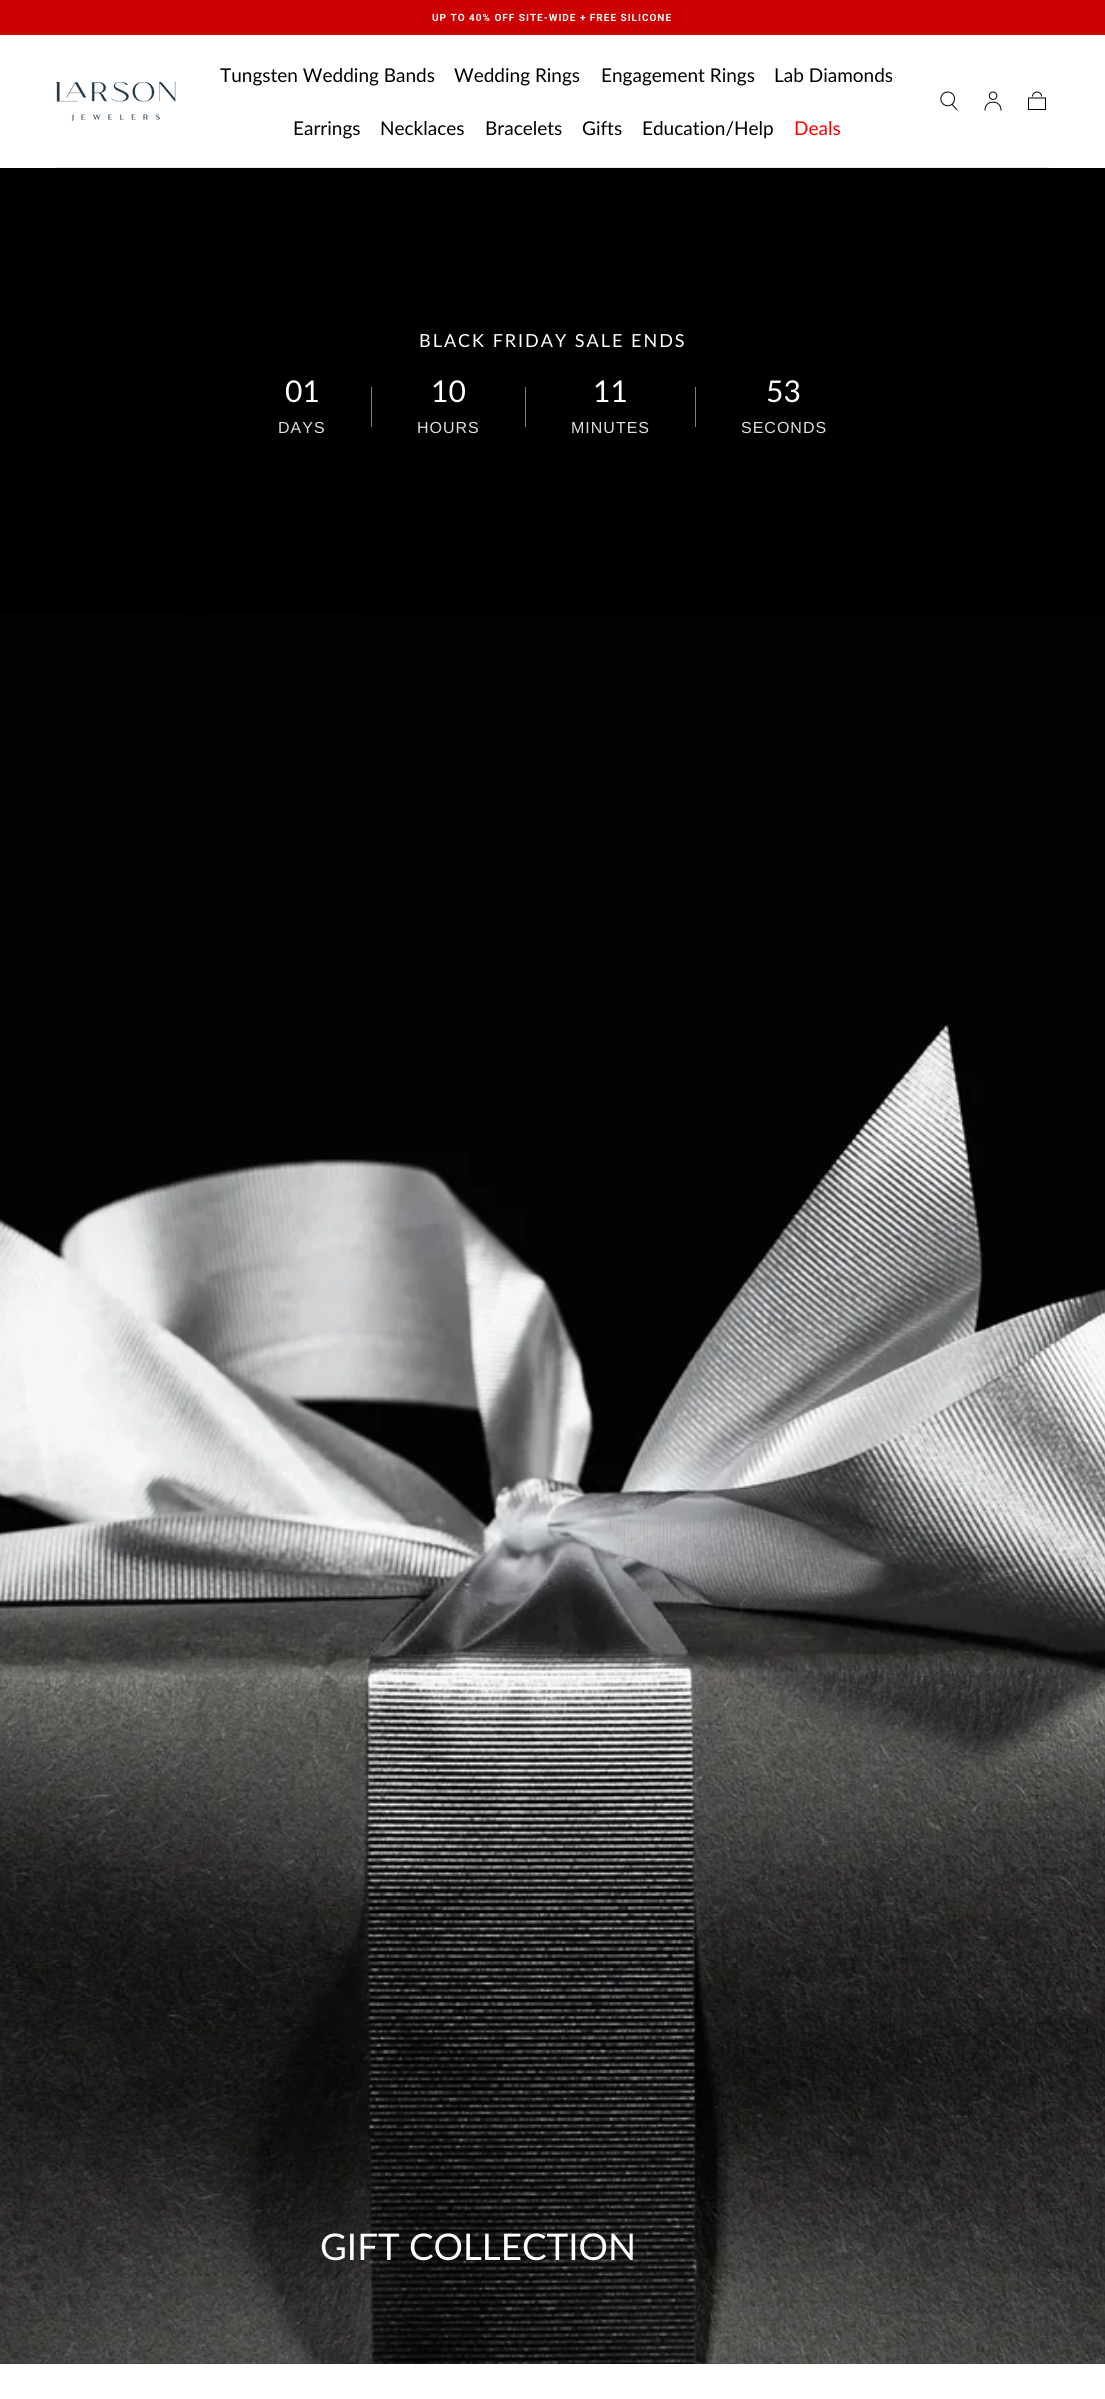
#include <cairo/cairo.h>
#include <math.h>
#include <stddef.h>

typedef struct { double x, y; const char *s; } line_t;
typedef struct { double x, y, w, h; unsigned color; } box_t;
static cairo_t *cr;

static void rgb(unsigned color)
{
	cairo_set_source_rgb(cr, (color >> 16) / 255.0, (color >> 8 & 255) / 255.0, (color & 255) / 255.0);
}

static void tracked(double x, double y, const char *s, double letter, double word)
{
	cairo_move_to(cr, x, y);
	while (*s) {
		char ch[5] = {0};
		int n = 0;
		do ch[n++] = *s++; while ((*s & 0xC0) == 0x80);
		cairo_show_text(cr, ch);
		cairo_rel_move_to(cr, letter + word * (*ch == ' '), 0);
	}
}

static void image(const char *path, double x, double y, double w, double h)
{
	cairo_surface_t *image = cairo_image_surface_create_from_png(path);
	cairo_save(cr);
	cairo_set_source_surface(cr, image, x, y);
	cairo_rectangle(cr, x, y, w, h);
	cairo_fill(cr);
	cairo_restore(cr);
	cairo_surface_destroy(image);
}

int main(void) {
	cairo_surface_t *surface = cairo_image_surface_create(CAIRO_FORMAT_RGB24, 1105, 2399);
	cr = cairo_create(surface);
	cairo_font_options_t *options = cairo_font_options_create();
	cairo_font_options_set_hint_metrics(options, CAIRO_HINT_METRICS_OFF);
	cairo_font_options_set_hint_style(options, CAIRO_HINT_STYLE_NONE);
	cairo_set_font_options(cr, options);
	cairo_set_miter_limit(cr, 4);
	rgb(0xffffff);
	cairo_paint(cr);
	rgb(0xcc0000);
	cairo_rectangle(cr, 0, 0, 1105, 35);
	cairo_fill(cr);
	image("img/1.png", 56, 82, 120, 39);
	image("img/2.png", 940, 91, 18, 20);
	image("img/3.png", 984, 91, 18, 20);
	image("img/4.png", 1028, 91, 18, 19);
	{
		static const box_t items[] = {
			{56, 167, 993, 1, 0xe6e6e6},
			{0, 168, 1105, 445, 0x000000},
			{371, 387, 1, 40, 0x808080},
			{525, 387, 1, 40, 0x808080},
			{695, 387, 1, 40, 0x808080},
		};
		for (size_t i = 0; i < sizeof items / sizeof *items; i++) {
			rgb(items[i].color);
			cairo_rectangle(cr, items[i].x, items[i].y, items[i].w, items[i].h);
			cairo_fill(cr);
		}
	}
	image("img/5.png", 0, 613, 1105, 1751);
	cairo_select_font_face(cr, "Roboto", CAIRO_FONT_SLANT_NORMAL, CAIRO_FONT_WEIGHT_BOLD);
	cairo_set_font_size(cr, 10);
	rgb(0xffffff);
	tracked(432, 21, "UP TO 40% OFF SITE-WIDE + FREE SILICONE", 1, 0);
	cairo_select_font_face(cr, "Lato", CAIRO_FONT_SLANT_NORMAL, CAIRO_FONT_WEIGHT_NORMAL);
	cairo_set_font_size(cr, 19);
	rgb(0x000000);
	{
		static const line_t items[] = {
			{220, 82, "Tungsten Wedding Bands"},
			{454, 82, "Wedding Rings"},
			{601, 82, "Engagement Rings"},
			{774, 82, "Lab Diamonds"},
			{293, 135, "Earrings"},
			{380, 135, "Necklaces"},
			{485, 135, "Bracelets"},
			{582, 135, "Gifts"},
			{642, 135, "Education/Help"},
		};
		for (size_t i = 0; i < sizeof items / sizeof *items; i++) {
			cairo_move_to(cr, items[i].x, items[i].y);
			cairo_show_text(cr, items[i].s);
		}
	}
	rgb(0xff0000);
	cairo_move_to(cr, 794, 135);
	cairo_show_text(cr, "Deals");
	cairo_set_font_size(cr, 18);
	rgb(0xffffff);
	tracked(419, 347, "BLACK FRIDAY SALE ENDS", 2, 0);
	cairo_set_font_size(cr, 30);
	cairo_move_to(cr, 285, 402);
	cairo_show_text(cr, "01");
	cairo_select_font_face(cr, "Liberation Sans", CAIRO_FONT_SLANT_NORMAL, CAIRO_FONT_WEIGHT_NORMAL);
	cairo_set_font_size(cr, 16);
	rgb(0xdfdfdf);
	tracked(278, 433, "DAYS", 1, 0);
	cairo_select_font_face(cr, "Lato", CAIRO_FONT_SLANT_NORMAL, CAIRO_FONT_WEIGHT_NORMAL);
	cairo_set_font_size(cr, 30);
	rgb(0xffffff);
	cairo_move_to(cr, 431, 402);
	cairo_show_text(cr, "10");
	cairo_select_font_face(cr, "Liberation Sans", CAIRO_FONT_SLANT_NORMAL, CAIRO_FONT_WEIGHT_NORMAL);
	cairo_set_font_size(cr, 16);
	rgb(0xdfdfdf);
	tracked(417, 433, "HOURS", 1, 0);
	cairo_select_font_face(cr, "Lato", CAIRO_FONT_SLANT_NORMAL, CAIRO_FONT_WEIGHT_NORMAL);
	cairo_set_font_size(cr, 30);
	rgb(0xffffff);
	cairo_move_to(cr, 593, 402);
	cairo_show_text(cr, "11");
	cairo_select_font_face(cr, "Liberation Sans", CAIRO_FONT_SLANT_NORMAL, CAIRO_FONT_WEIGHT_NORMAL);
	cairo_set_font_size(cr, 16);
	rgb(0xdfdfdf);
	tracked(571, 433, "MINUTES", 1, 0);
	cairo_select_font_face(cr, "Lato", CAIRO_FONT_SLANT_NORMAL, CAIRO_FONT_WEIGHT_NORMAL);
	cairo_set_font_size(cr, 30);
	rgb(0xffffff);
	cairo_move_to(cr, 766, 402);
	cairo_show_text(cr, "53");
	cairo_select_font_face(cr, "Liberation Sans", CAIRO_FONT_SLANT_NORMAL, CAIRO_FONT_WEIGHT_NORMAL);
	cairo_set_font_size(cr, 16);
	rgb(0xdfdfdf);
	tracked(741, 433, "SECONDS", 1, 0);
	cairo_select_font_face(cr, "Lato", CAIRO_FONT_SLANT_NORMAL, CAIRO_FONT_WEIGHT_NORMAL);
	cairo_set_font_size(cr, 36.75);
	rgb(0xffffff);
	cairo_move_to(cr, 320, 2260);
	cairo_show_text(cr, "GIFT COLLECTION");
	cairo_surface_write_to_png(surface, "page.png");
	cairo_font_options_destroy(options);
	cairo_destroy(cr);
	cairo_surface_destroy(surface);
	return 0;
}
